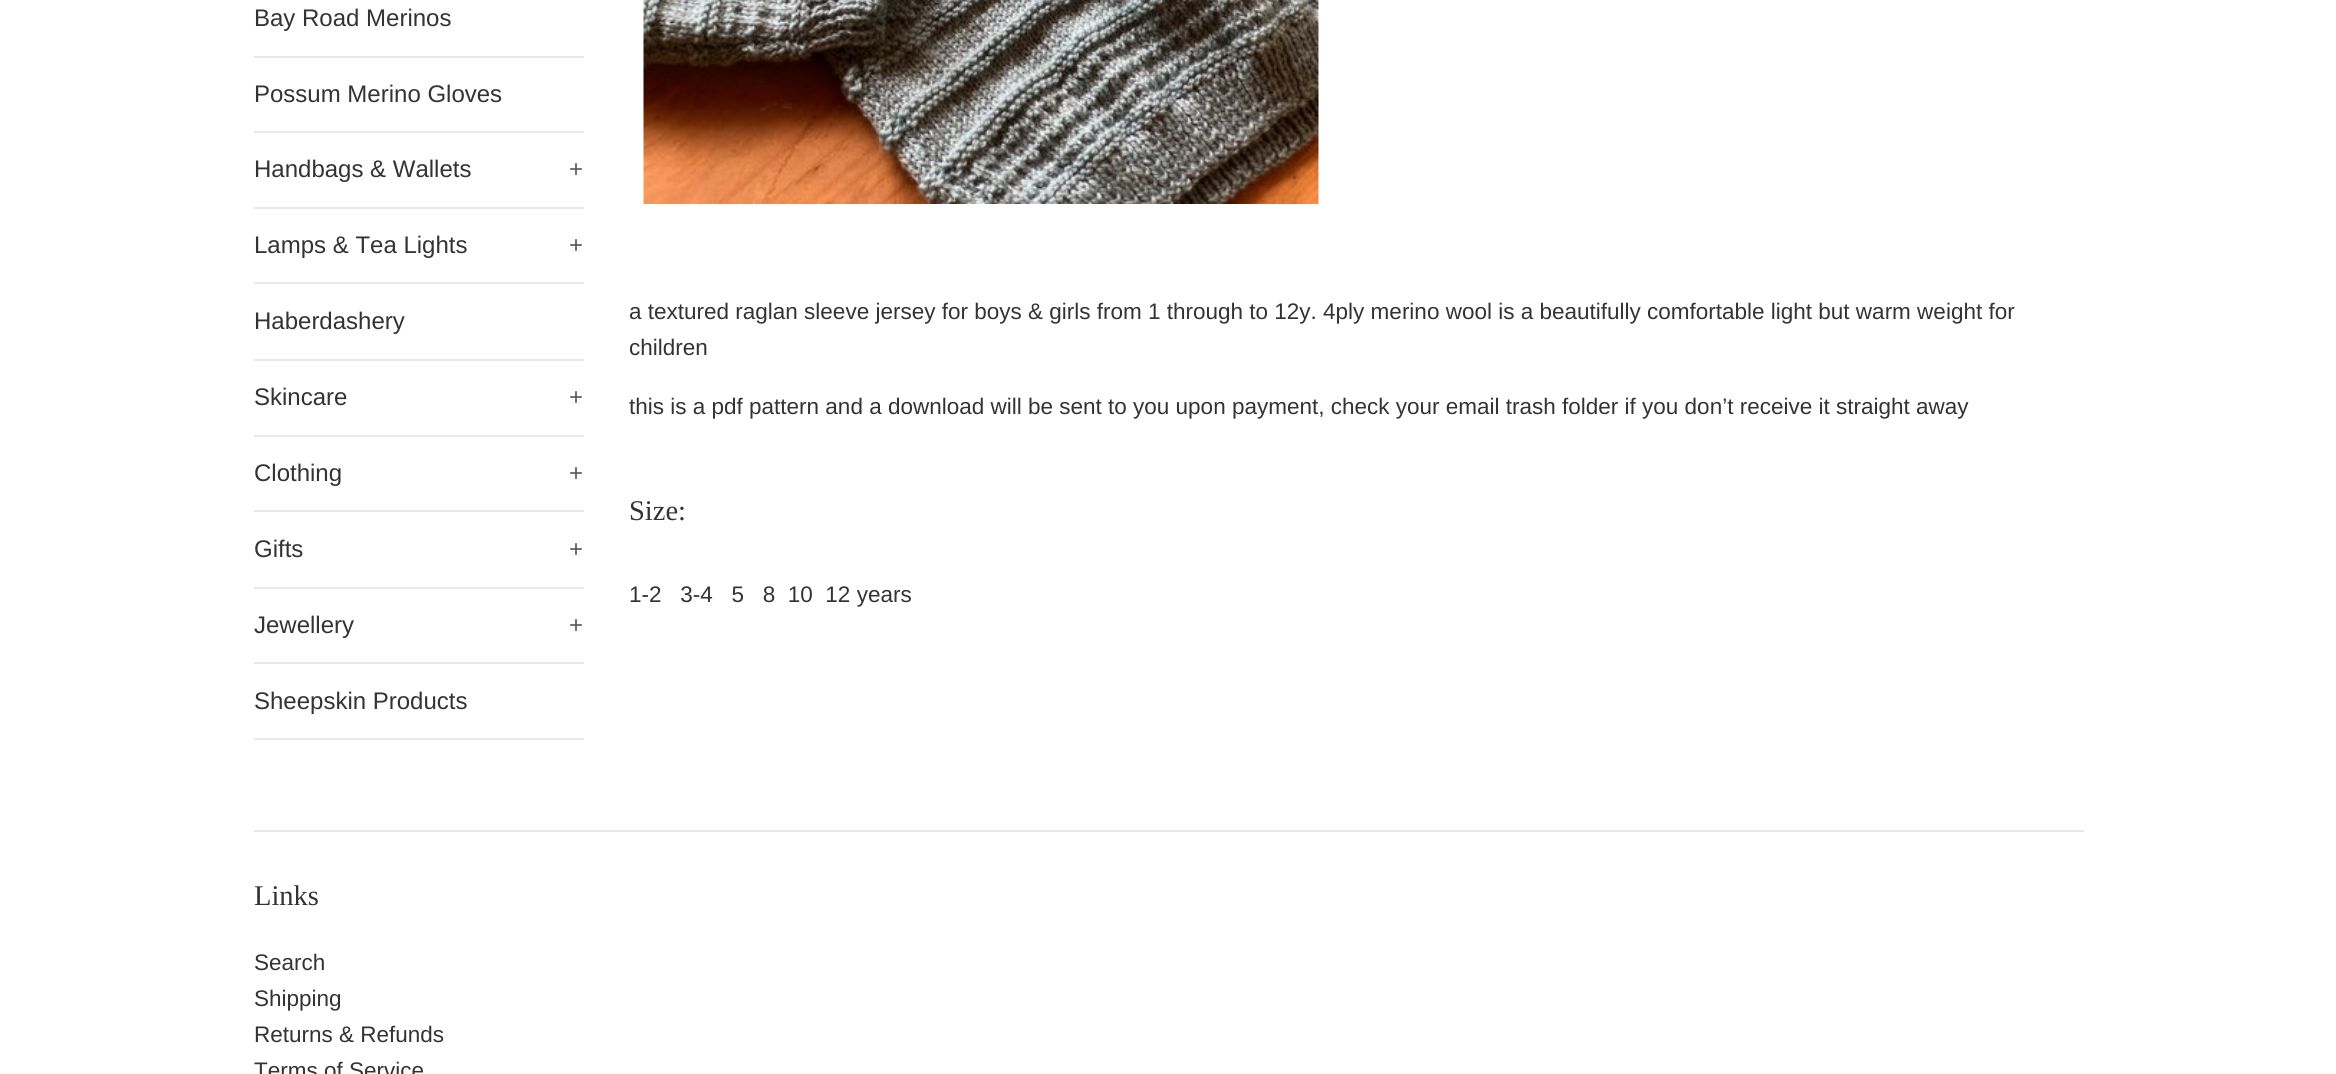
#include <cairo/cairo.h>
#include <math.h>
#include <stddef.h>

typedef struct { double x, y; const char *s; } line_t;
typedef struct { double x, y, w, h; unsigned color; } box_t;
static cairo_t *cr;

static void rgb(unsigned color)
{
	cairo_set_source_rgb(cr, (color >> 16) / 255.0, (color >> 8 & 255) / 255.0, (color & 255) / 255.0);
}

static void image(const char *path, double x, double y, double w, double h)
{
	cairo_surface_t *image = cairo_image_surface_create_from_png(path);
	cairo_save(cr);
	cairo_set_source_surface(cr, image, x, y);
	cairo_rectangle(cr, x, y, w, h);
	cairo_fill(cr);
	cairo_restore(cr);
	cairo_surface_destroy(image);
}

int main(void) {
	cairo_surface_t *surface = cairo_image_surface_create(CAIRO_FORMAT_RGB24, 2336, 1074);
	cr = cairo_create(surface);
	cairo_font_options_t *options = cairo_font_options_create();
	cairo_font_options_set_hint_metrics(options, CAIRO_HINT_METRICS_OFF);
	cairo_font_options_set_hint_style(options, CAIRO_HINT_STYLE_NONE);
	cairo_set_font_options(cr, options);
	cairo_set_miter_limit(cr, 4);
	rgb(0xffffff);
	cairo_paint(cr);
	{
		static const box_t items[] = {
			{254, 56, 330, 2, 0xe8e8e8},
			{254, 131, 330, 2, 0xe8e8e8},
			{254, 207, 330, 2, 0xe8e8e8},
			{254, 282, 330, 2, 0xe8e8e8},
			{254, 359, 330, 2, 0xe8e8e8},
			{254, 435, 330, 2, 0xe8e8e8},
			{254, 510, 330, 2, 0xe8e8e8},
			{254, 587, 330, 2, 0xe8e8e8},
			{254, 662, 330, 2, 0xe8e8e8},
			{254, 738, 330, 2, 0xe8e8e8},
		};
		for (size_t i = 0; i < sizeof items / sizeof *items; i++) {
			rgb(items[i].color);
			cairo_rectangle(cr, items[i].x, items[i].y, items[i].w, items[i].h);
			cairo_fill(cr);
		}
	}
	image("img/1.png", 643, 0, 676, 204);
	cairo_rectangle(cr, 254, 830, 1830, 2);
	cairo_fill(cr);
	cairo_select_font_face(cr, "Liberation Sans", CAIRO_FONT_SLANT_NORMAL, CAIRO_FONT_WEIGHT_NORMAL);
	cairo_set_font_size(cr, 24);
	rgb(0x333333);
	{
		static const line_t items[] = {
			{254, 26, "Bay Road Merinos"},
			{254, 102, "Possum Merino Gloves"},
			{254, 177, "Handbags & Wallets"},
		};
		for (size_t i = 0; i < sizeof items / sizeof *items; i++) {
			cairo_move_to(cr, items[i].x, items[i].y);
			cairo_show_text(cr, items[i].s);
		}
	}
	rgb(0x5c5c5c);
	cairo_move_to(cr, 569, 177);
	cairo_show_text(cr, "+");
	rgb(0x333333);
	cairo_move_to(cr, 254, 253);
	cairo_show_text(cr, "Lamps & Tea Lights");
	rgb(0x5c5c5c);
	cairo_move_to(cr, 569, 253);
	cairo_show_text(cr, "+");
	rgb(0x333333);
	cairo_move_to(cr, 254, 329);
	cairo_show_text(cr, "Haberdashery");
	cairo_move_to(cr, 254, 405);
	cairo_show_text(cr, "Skincare");
	rgb(0x5c5c5c);
	cairo_move_to(cr, 569, 405);
	cairo_show_text(cr, "+");
	rgb(0x333333);
	cairo_move_to(cr, 254, 481);
	cairo_show_text(cr, "Clothing");
	rgb(0x5c5c5c);
	cairo_move_to(cr, 569, 481);
	cairo_show_text(cr, "+");
	rgb(0x333333);
	cairo_move_to(cr, 254, 557);
	cairo_show_text(cr, "Gifts");
	rgb(0x5c5c5c);
	cairo_move_to(cr, 569, 557);
	cairo_show_text(cr, "+");
	rgb(0x333333);
	cairo_move_to(cr, 254, 633);
	cairo_show_text(cr, "Jewellery");
	rgb(0x5c5c5c);
	cairo_move_to(cr, 569, 633);
	cairo_show_text(cr, "+");
	rgb(0x333333);
	cairo_move_to(cr, 254, 709);
	cairo_show_text(cr, "Sheepskin Products");
	cairo_set_font_size(cr, 22.5);
	{
		static const line_t items[] = {
			{629, 319, "a textured raglan sleeve jersey for boys & girls from 1 through to 12y. 4ply merino wool is a beautifully comfortable light but warm weight for"},
			{629, 355, "children"},
			{629, 414, "this is a pdf pattern and a download will be sent to you upon payment, check your email trash folder if you don’t receive it straight away"},
		};
		for (size_t i = 0; i < sizeof items / sizeof *items; i++) {
			cairo_move_to(cr, items[i].x, items[i].y);
			cairo_show_text(cr, items[i].s);
		}
	}
	cairo_select_font_face(cr, "Liberation Serif", CAIRO_FONT_SLANT_NORMAL, CAIRO_FONT_WEIGHT_NORMAL);
	cairo_set_font_size(cr, 28.5);
	cairo_move_to(cr, 629, 520);
	cairo_show_text(cr, "Size:");
	cairo_select_font_face(cr, "Liberation Sans", CAIRO_FONT_SLANT_NORMAL, CAIRO_FONT_WEIGHT_NORMAL);
	cairo_set_font_size(cr, 22.5);
	cairo_move_to(cr, 629, 602);
	cairo_show_text(cr, "1-2   3-4   5   8  10  12 years");
	cairo_select_font_face(cr, "Liberation Serif", CAIRO_FONT_SLANT_NORMAL, CAIRO_FONT_WEIGHT_NORMAL);
	cairo_set_font_size(cr, 28.5);
	cairo_move_to(cr, 254, 905);
	cairo_show_text(cr, "Links");
	cairo_select_font_face(cr, "Liberation Sans", CAIRO_FONT_SLANT_NORMAL, CAIRO_FONT_WEIGHT_NORMAL);
	cairo_set_font_size(cr, 22.5);
	{
		static const line_t items[] = {
			{254, 970, "Search"},
			{254, 1006, "Shipping"},
			{254, 1042, "Returns & Refunds"},
			{254, 1078, "Terms of Service"},
		};
		for (size_t i = 0; i < sizeof items / sizeof *items; i++) {
			cairo_move_to(cr, items[i].x, items[i].y);
			cairo_show_text(cr, items[i].s);
		}
	}
	cairo_surface_write_to_png(surface, "page.png");
	cairo_font_options_destroy(options);
	cairo_destroy(cr);
	cairo_surface_destroy(surface);
	return 0;
}
